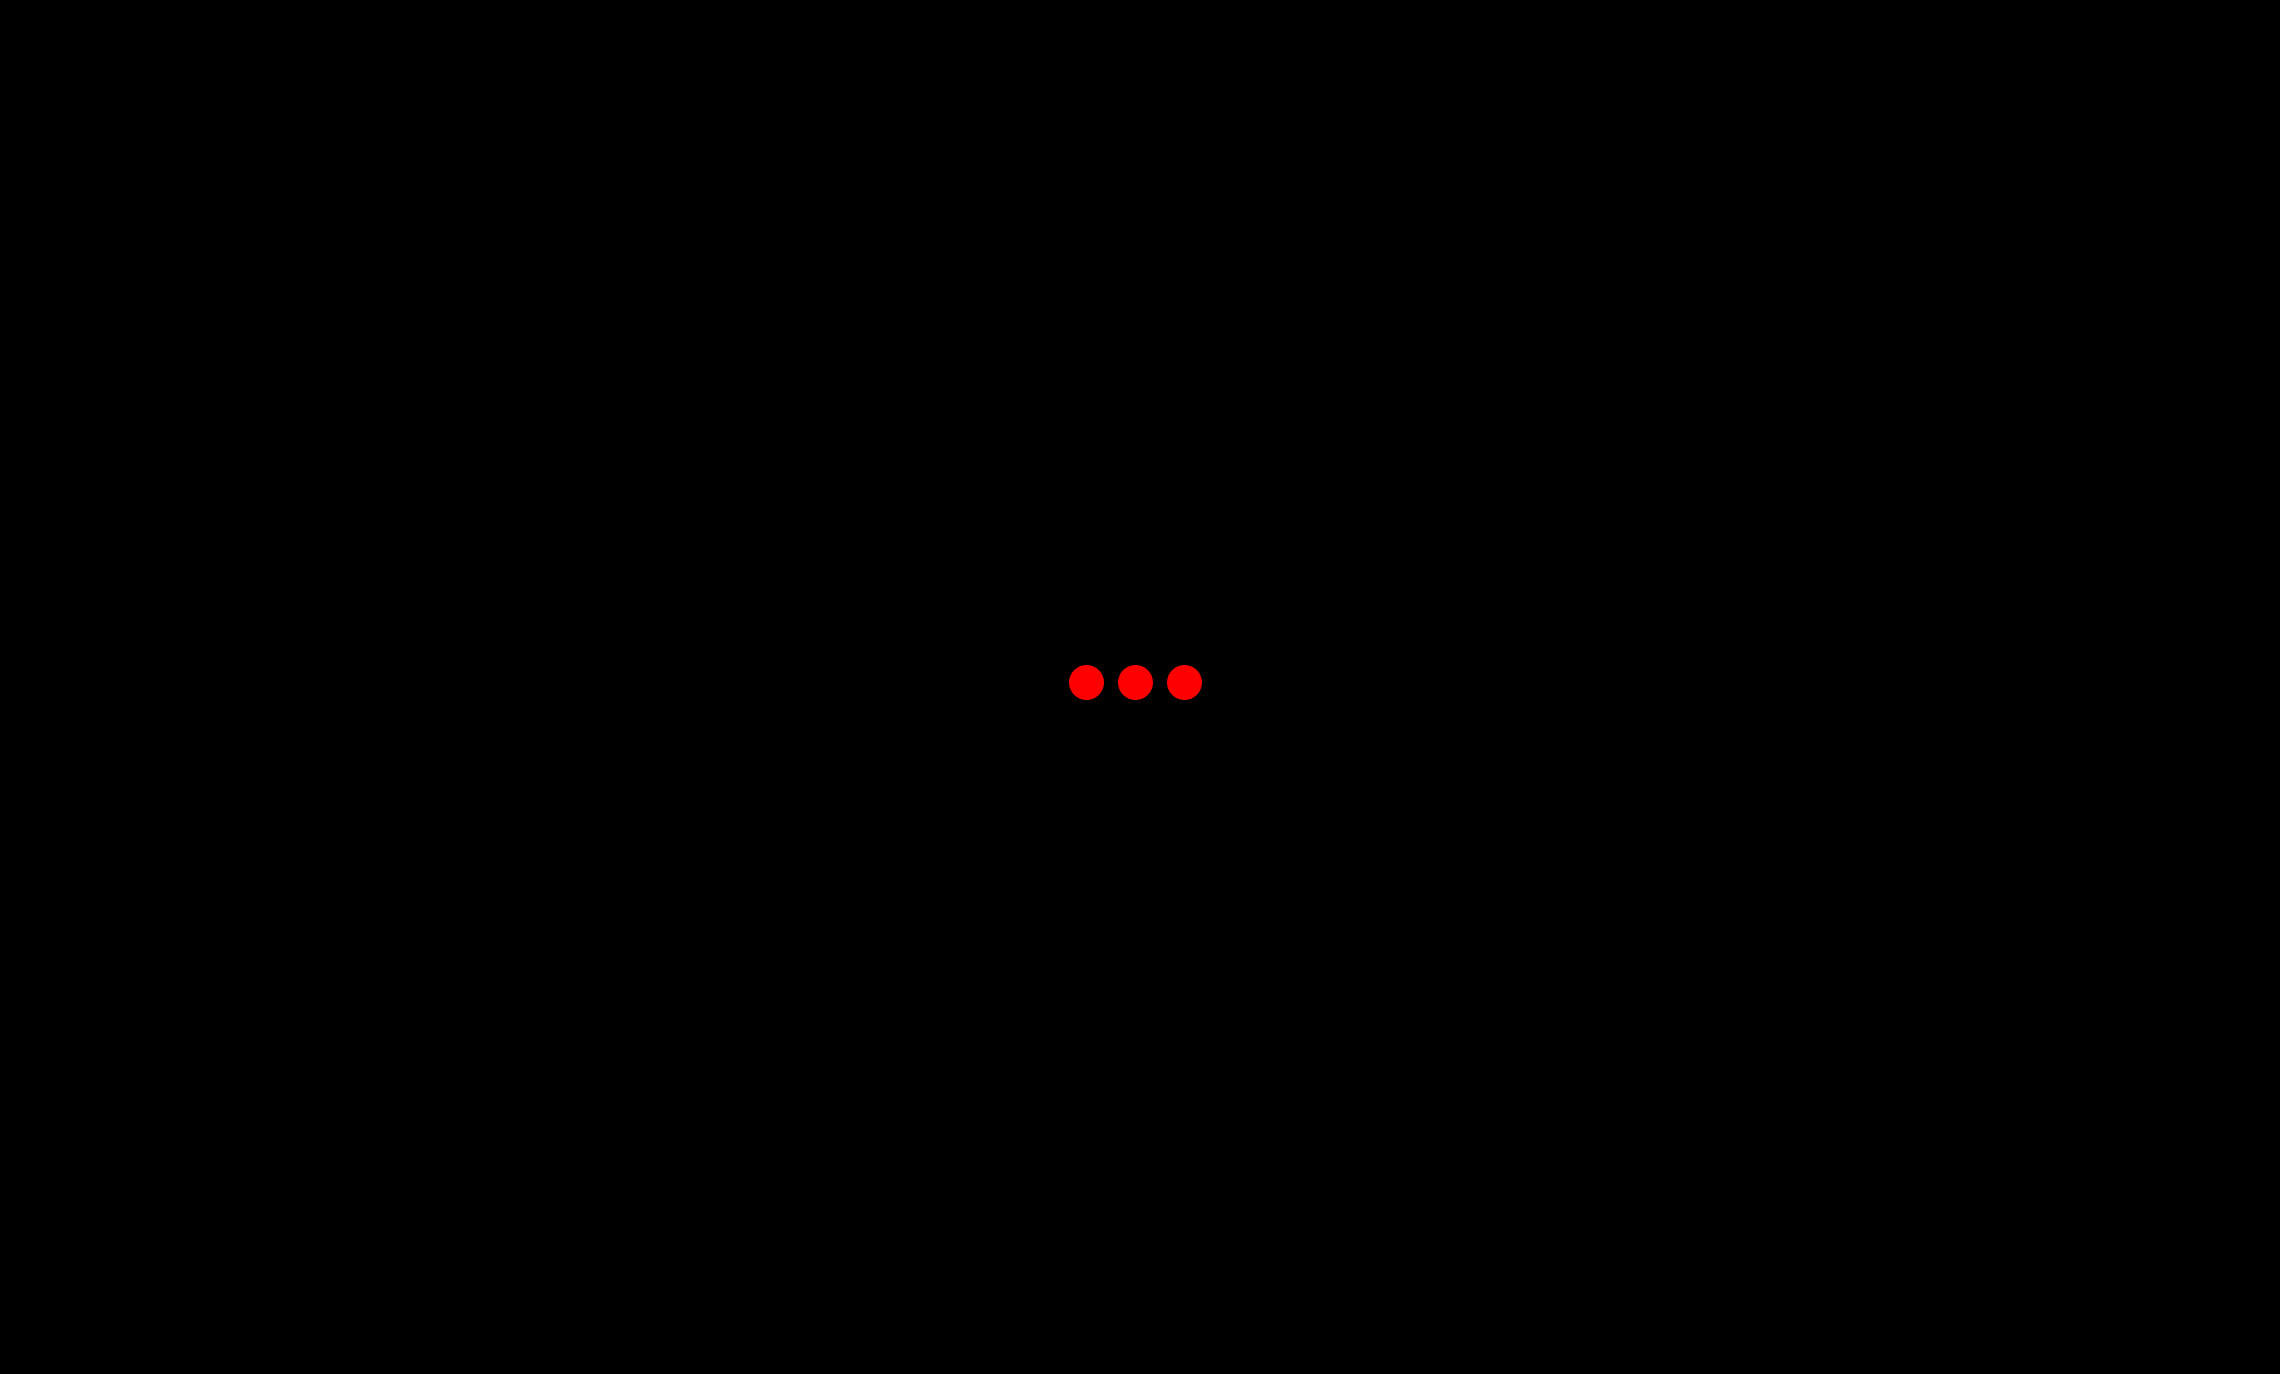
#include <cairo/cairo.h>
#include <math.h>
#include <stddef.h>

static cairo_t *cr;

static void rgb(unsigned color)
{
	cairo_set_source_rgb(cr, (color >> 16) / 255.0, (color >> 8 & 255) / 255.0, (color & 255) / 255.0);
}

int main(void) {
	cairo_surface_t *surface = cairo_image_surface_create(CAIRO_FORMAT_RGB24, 2280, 1374);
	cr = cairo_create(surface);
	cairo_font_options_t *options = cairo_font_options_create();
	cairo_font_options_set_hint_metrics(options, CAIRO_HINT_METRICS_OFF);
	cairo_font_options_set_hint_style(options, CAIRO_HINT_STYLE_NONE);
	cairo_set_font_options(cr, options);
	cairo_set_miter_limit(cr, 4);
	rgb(0x000000);
	cairo_paint(cr);
	rgb(0xff0000);
	cairo_arc(cr, 1086.5, 682.5, 15, 0, 2 * M_PI);
	cairo_fill_preserve(cr);
	cairo_set_line_width(cr, 5);
	cairo_stroke(cr);
	cairo_arc(cr, 1135.5, 682.5, 15, 0, 2 * M_PI);
	cairo_fill_preserve(cr);
	cairo_stroke(cr);
	rgb(0xfd0000);
	cairo_arc(cr, 1184.5, 682.5, 15, 0, 2 * M_PI);
	cairo_fill_preserve(cr);
	cairo_stroke(cr);
	cairo_surface_write_to_png(surface, "page.png");
	cairo_font_options_destroy(options);
	cairo_destroy(cr);
	cairo_surface_destroy(surface);
	return 0;
}
